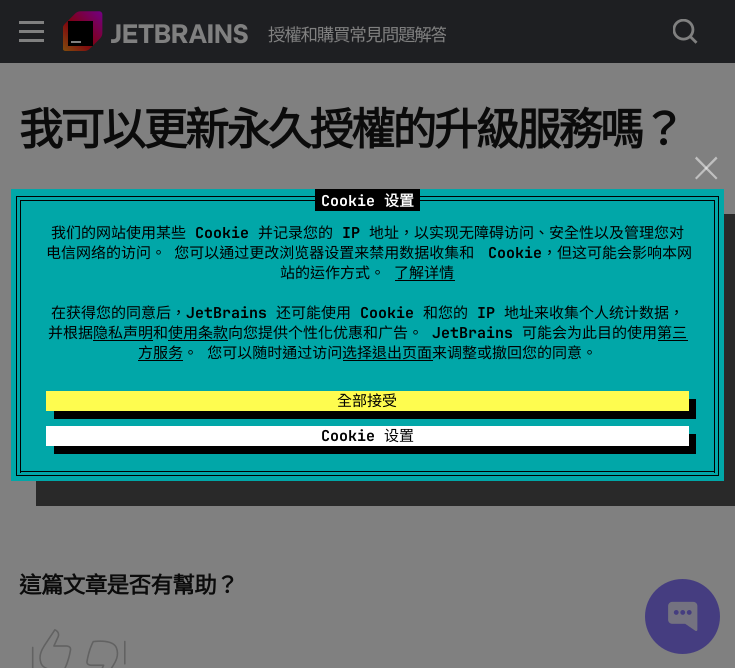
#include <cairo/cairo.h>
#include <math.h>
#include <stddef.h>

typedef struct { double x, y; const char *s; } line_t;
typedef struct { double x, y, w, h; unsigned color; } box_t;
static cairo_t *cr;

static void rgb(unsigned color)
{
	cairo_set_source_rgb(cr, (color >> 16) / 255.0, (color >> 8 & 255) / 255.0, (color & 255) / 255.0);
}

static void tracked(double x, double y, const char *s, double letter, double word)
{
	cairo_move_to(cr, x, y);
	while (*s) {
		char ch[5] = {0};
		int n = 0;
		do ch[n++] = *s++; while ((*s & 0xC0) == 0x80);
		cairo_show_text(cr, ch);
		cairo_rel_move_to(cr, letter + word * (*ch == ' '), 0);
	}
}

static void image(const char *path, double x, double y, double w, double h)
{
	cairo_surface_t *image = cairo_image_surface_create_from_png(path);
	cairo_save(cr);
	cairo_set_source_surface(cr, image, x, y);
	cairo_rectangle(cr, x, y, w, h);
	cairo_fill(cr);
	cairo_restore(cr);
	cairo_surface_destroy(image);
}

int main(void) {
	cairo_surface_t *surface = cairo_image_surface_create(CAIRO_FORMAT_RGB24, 735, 668);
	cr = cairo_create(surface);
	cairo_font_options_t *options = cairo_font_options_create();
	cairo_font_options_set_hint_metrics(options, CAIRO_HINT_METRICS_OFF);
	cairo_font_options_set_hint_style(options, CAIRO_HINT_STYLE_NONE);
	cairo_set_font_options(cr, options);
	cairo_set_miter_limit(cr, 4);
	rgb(0x808080);
	cairo_paint(cr);
	{
		static const box_t items[] = {
			{0, 0, 735, 63, 0x1e1f22},
			{19, 30, 25, 3, 0x808080},
			{19, 21, 25, 3, 0x808080},
			{19, 39, 25, 3, 0x808080},
		};
		for (size_t i = 0; i < sizeof items / sizeof *items; i++) {
			rgb(items[i].color);
			cairo_rectangle(cr, items[i].x, items[i].y, items[i].w, items[i].h);
			cairo_fill(cr);
		}
	}
	image("img/1.png", 63, 11, 185, 40);
	image("img/2.png", 673, 19, 25, 25);
	image("img/3.png", 31, 629, 41, 39);
	image("img/4.png", 86, 640, 40, 28);
	cairo_set_source_rgba(cr, 0, 0, 0, 0.68);
	cairo_new_path(cr);
	cairo_move_to(cr, 36, 481);
	cairo_line_to(cr, 36, 506);
	cairo_line_to(cr, 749, 506);
	cairo_line_to(cr, 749, 214);
	cairo_line_to(cr, 724, 214);
	cairo_line_to(cr, 724, 481);
	cairo_close_path(cr);
	cairo_fill(cr);
	rgb(0x01a7a8);
	cairo_rectangle(cr, 11, 189, 713, 292);
	cairo_fill(cr);
	rgb(0xbfbfbf);
	cairo_new_path(cr);
	cairo_move_to(cr, 695, 178);
	cairo_line_to(cr, 716, 156.5);
	cairo_line_to(cr, 717.5, 158.5);
	cairo_line_to(cr, 696.5, 179.5);
	cairo_close_path(cr);
	cairo_fill(cr);
	cairo_set_source_rgba(cr, 1, 1, 1, 0.5);
	cairo_new_path(cr);
	cairo_move_to(cr, 696.5, 156.5);
	cairo_line_to(cr, 717.5, 178);
	cairo_line_to(cr, 716, 179.5);
	cairo_line_to(cr, 695, 158.5);
	cairo_close_path(cr);
	cairo_fill(cr);
	{
		static const box_t items[] = {
			{20, 200, 695, 1, 0x000000},
			{714, 200, 1, 273, 0x000000},
			{20, 200, 1, 191, 0x000000},
			{16, 196, 703, 1, 0x000000},
			{315, 189, 105, 22, 0x000000},
			{718, 196, 1, 280, 0x000000},
			{16, 196, 1, 194, 0x000000},
			{395, 280, 60, 1, 0x000000},
			{93, 340, 60, 1, 0x000000},
			{168, 340, 60, 1, 0x000000},
			{658, 340, 30, 1, 0x000000},
			{138, 360, 45, 1, 0x000000},
			{343, 360, 90, 1, 0x000000},
			{20, 471, 695, 1, 0x000000},
			{20, 391, 1, 82, 0x000000},
			{16, 475, 703, 1, 0x000000},
			{16, 390, 1, 86, 0x000000},
		};
		for (size_t i = 0; i < sizeof items / sizeof *items; i++) {
			rgb(items[i].color);
			cairo_rectangle(cr, items[i].x, items[i].y, items[i].w, items[i].h);
			cairo_fill(cr);
		}
	}
	cairo_new_path(cr);
	cairo_move_to(cr, 54, 411);
	cairo_line_to(cr, 54, 419);
	cairo_line_to(cr, 696, 419);
	cairo_line_to(cr, 696, 399);
	cairo_line_to(cr, 689, 399);
	cairo_line_to(cr, 689, 411);
	cairo_close_path(cr);
	cairo_fill(cr);
	rgb(0xfefc4f);
	cairo_rectangle(cr, 46, 391, 643, 20);
	cairo_fill(cr);
	rgb(0x000000);
	cairo_new_path(cr);
	cairo_move_to(cr, 54, 446);
	cairo_line_to(cr, 54, 454);
	cairo_line_to(cr, 696, 454);
	cairo_line_to(cr, 696, 434);
	cairo_line_to(cr, 689, 434);
	cairo_line_to(cr, 689, 446);
	cairo_close_path(cr);
	cairo_fill(cr);
	rgb(0xffffff);
	cairo_rectangle(cr, 46, 426, 643, 20);
	cairo_fill(cr);
	rgb(0x453d80);
	cairo_arc(cr, 682.5, 616.5, 37.5, 0, 2 * M_PI);
	cairo_fill(cr);
	image("img/5.png", 668, 601, 30, 30);
	cairo_save(cr);
	cairo_rectangle(cr, 268, 25, 178, 20);
	cairo_clip(cr);
	cairo_select_font_face(cr, "Noto Sans CJK TC", CAIRO_FONT_SLANT_NORMAL, CAIRO_FONT_WEIGHT_NORMAL);
	cairo_set_font_size(cr, 17.5);
	rgb(0x808080);
	tracked(268, 41, "授權和購買常見問題解答", -1.25, 0);
	cairo_restore(cr);
	cairo_select_font_face(cr, "Noto Sans CJK TC", CAIRO_FONT_SLANT_NORMAL, CAIRO_FONT_WEIGHT_BOLD);
	cairo_set_font_size(cr, 44);
	rgb(0x0b0b0b);
	tracked(19, 145, "我可以更新永久授權的升級服務嗎？", -2.5, 0);
	cairo_set_font_size(cr, 22.5);
	tracked(19, 593, "這篇文章是否有幫助？", -0.6, 0);
	cairo_select_font_face(cr, "JetBrains Mono", CAIRO_FONT_SLANT_NORMAL, CAIRO_FONT_WEIGHT_BOLD);
	cairo_set_font_size(cr, 15);
	rgb(0xffffff);
	cairo_move_to(cr, 321, 206);
	cairo_show_text(cr, "Cookie");
	cairo_select_font_face(cr, "Noto Sans CJK TC", CAIRO_FONT_SLANT_NORMAL, CAIRO_FONT_WEIGHT_BOLD);
	cairo_move_to(cr, 384, 206);
	cairo_show_text(cr, "设置");
	cairo_select_font_face(cr, "Noto Sans CJK TC", CAIRO_FONT_SLANT_NORMAL, CAIRO_FONT_WEIGHT_NORMAL);
	rgb(0x000000);
	cairo_move_to(cr, 51, 238);
	cairo_show_text(cr, "我们的网站使用某些");
	cairo_select_font_face(cr, "JetBrains Mono", CAIRO_FONT_SLANT_NORMAL, CAIRO_FONT_WEIGHT_BOLD);
	cairo_move_to(cr, 195, 238);
	cairo_show_text(cr, "Cookie");
	cairo_select_font_face(cr, "Noto Sans CJK TC", CAIRO_FONT_SLANT_NORMAL, CAIRO_FONT_WEIGHT_NORMAL);
	cairo_move_to(cr, 258, 238);
	cairo_show_text(cr, "并记录您的");
	cairo_select_font_face(cr, "JetBrains Mono", CAIRO_FONT_SLANT_NORMAL, CAIRO_FONT_WEIGHT_BOLD);
	cairo_move_to(cr, 342, 238);
	cairo_show_text(cr, "IP");
	cairo_select_font_face(cr, "Noto Sans CJK TC", CAIRO_FONT_SLANT_NORMAL, CAIRO_FONT_WEIGHT_NORMAL);
	cairo_move_to(cr, 369, 238);
	cairo_show_text(cr, "地址，以实现无障碍访问、安全性以及管理您对");
	tracked(46, 258, "电信网络的访问。 您可以通过更改浏览器设置来禁用数据收集和", 0, 5);
	cairo_select_font_face(cr, "JetBrains Mono", CAIRO_FONT_SLANT_NORMAL, CAIRO_FONT_WEIGHT_BOLD);
	cairo_move_to(cr, 488, 258);
	cairo_show_text(cr, "Cookie");
	cairo_select_font_face(cr, "Noto Sans CJK TC", CAIRO_FONT_SLANT_NORMAL, CAIRO_FONT_WEIGHT_NORMAL);
	{
		static const line_t items[] = {
			{542, 258, "，但这可能会影响本网"},
			{280, 278, "站的运作方式。"},
			{394, 278, "了解详情"},
			{51, 318, "在获得您的同意后，"},
		};
		for (size_t i = 0; i < sizeof items / sizeof *items; i++) {
			cairo_move_to(cr, items[i].x, items[i].y);
			cairo_show_text(cr, items[i].s);
		}
	}
	cairo_select_font_face(cr, "JetBrains Mono", CAIRO_FONT_SLANT_NORMAL, CAIRO_FONT_WEIGHT_BOLD);
	cairo_move_to(cr, 186, 318);
	cairo_show_text(cr, "JetBrains");
	cairo_select_font_face(cr, "Noto Sans CJK TC", CAIRO_FONT_SLANT_NORMAL, CAIRO_FONT_WEIGHT_NORMAL);
	cairo_move_to(cr, 276, 318);
	cairo_show_text(cr, "还可能使用");
	cairo_select_font_face(cr, "JetBrains Mono", CAIRO_FONT_SLANT_NORMAL, CAIRO_FONT_WEIGHT_BOLD);
	cairo_move_to(cr, 360, 318);
	cairo_show_text(cr, "Cookie");
	cairo_select_font_face(cr, "Noto Sans CJK TC", CAIRO_FONT_SLANT_NORMAL, CAIRO_FONT_WEIGHT_NORMAL);
	cairo_move_to(cr, 423, 318);
	cairo_show_text(cr, "和您的");
	cairo_select_font_face(cr, "JetBrains Mono", CAIRO_FONT_SLANT_NORMAL, CAIRO_FONT_WEIGHT_BOLD);
	cairo_move_to(cr, 477, 318);
	cairo_show_text(cr, "IP");
	cairo_select_font_face(cr, "Noto Sans CJK TC", CAIRO_FONT_SLANT_NORMAL, CAIRO_FONT_WEIGHT_NORMAL);
	cairo_move_to(cr, 504, 318);
	cairo_show_text(cr, "地址来收集个人统计数据，");
	cairo_move_to(cr, 48, 338);
	cairo_show_text(cr, "并根据隐私声明和使用条款向您提供个性化优惠和广告。");
	cairo_select_font_face(cr, "JetBrains Mono", CAIRO_FONT_SLANT_NORMAL, CAIRO_FONT_WEIGHT_BOLD);
	cairo_move_to(cr, 432, 338);
	cairo_show_text(cr, "JetBrains");
	cairo_select_font_face(cr, "Noto Sans CJK TC", CAIRO_FONT_SLANT_NORMAL, CAIRO_FONT_WEIGHT_NORMAL);
	cairo_move_to(cr, 522, 338);
	cairo_show_text(cr, "可能会为此目的使用第三");
	cairo_move_to(cr, 138, 358);
	cairo_show_text(cr, "方服务");
	tracked(183, 358, "。 您可以随时通过访问", 0, 6);
	cairo_move_to(cr, 342, 358);
	cairo_show_text(cr, "选择退出页面来调整或撤回您的同意。");
	cairo_move_to(cr, 337, 406);
	cairo_show_text(cr, "全部接受");
	cairo_select_font_face(cr, "JetBrains Mono", CAIRO_FONT_SLANT_NORMAL, CAIRO_FONT_WEIGHT_BOLD);
	cairo_move_to(cr, 321, 441);
	cairo_show_text(cr, "Cookie");
	cairo_select_font_face(cr, "Noto Sans CJK TC", CAIRO_FONT_SLANT_NORMAL, CAIRO_FONT_WEIGHT_NORMAL);
	cairo_move_to(cr, 384, 441);
	cairo_show_text(cr, "设置");
	cairo_surface_write_to_png(surface, "page.png");
	cairo_font_options_destroy(options);
	cairo_destroy(cr);
	cairo_surface_destroy(surface);
	return 0;
}
